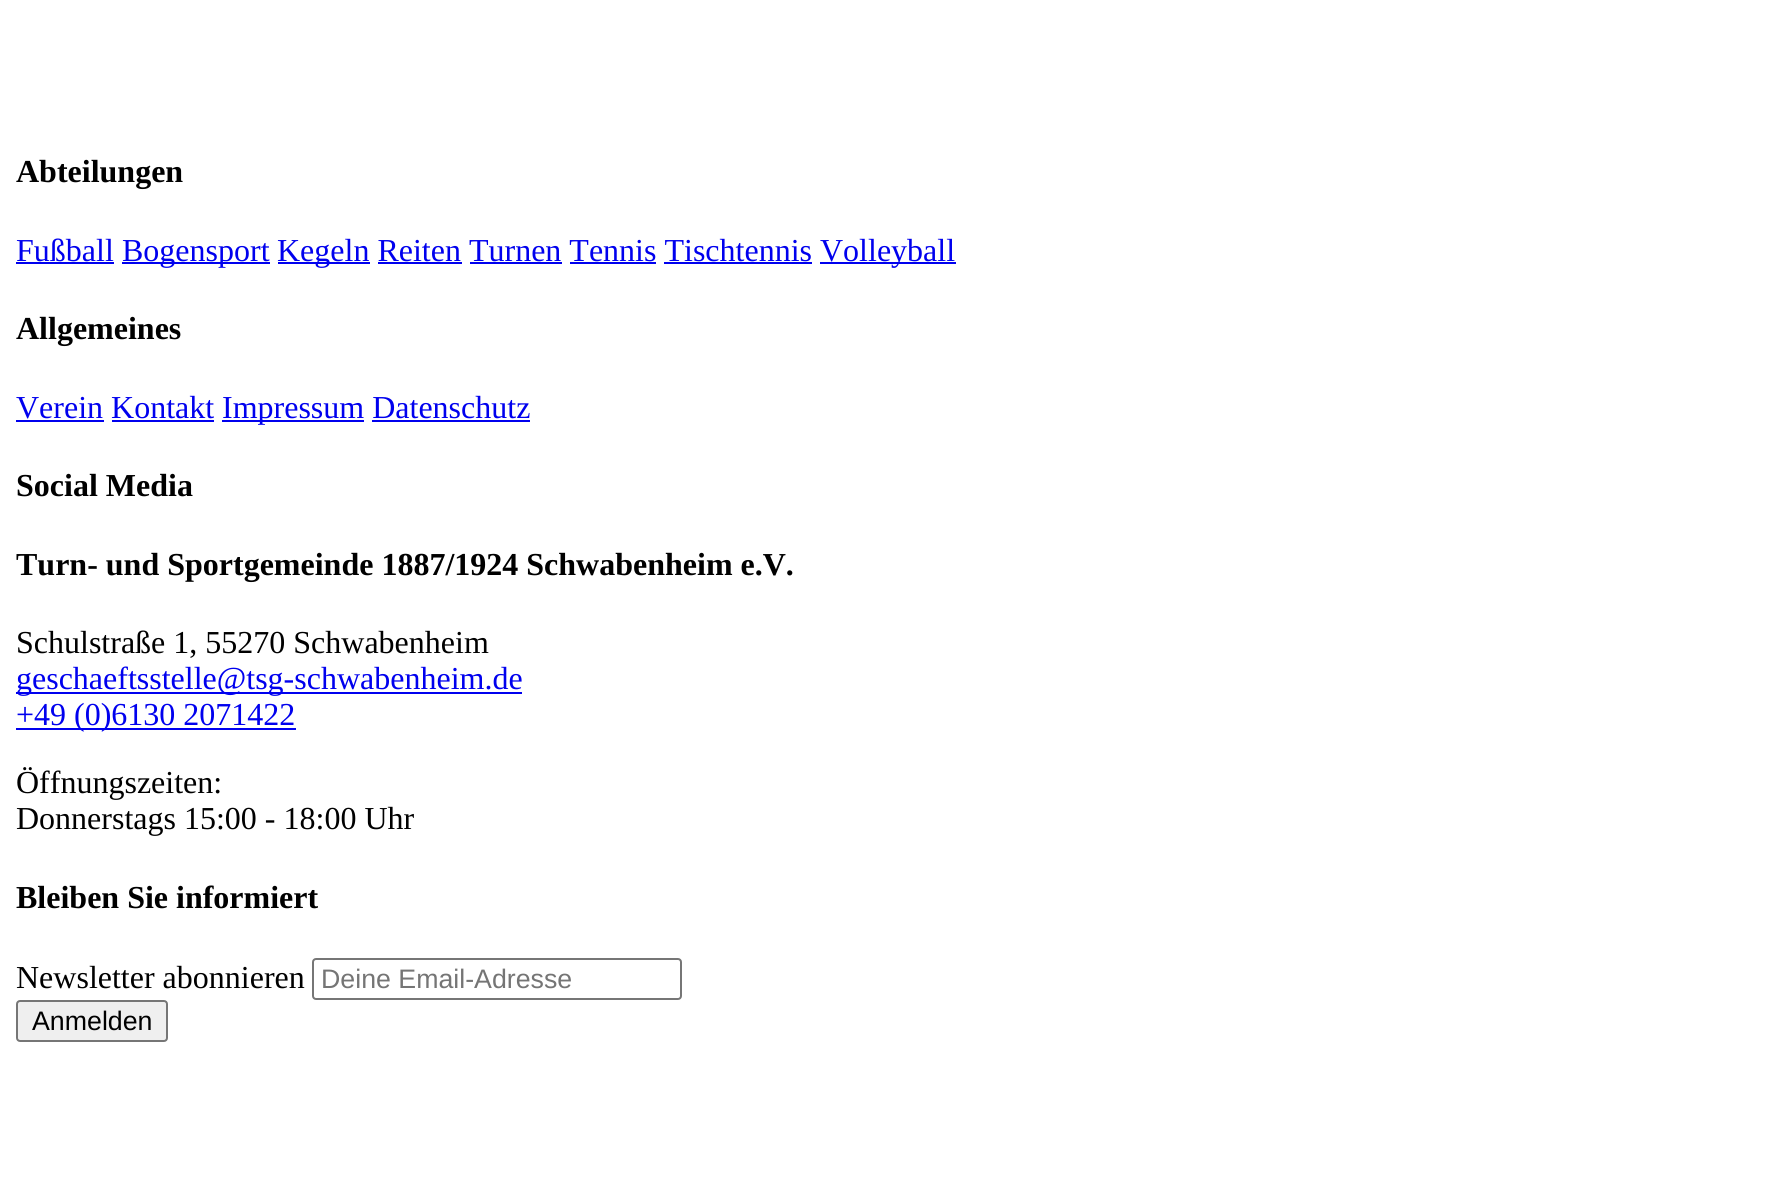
#include <cairo/cairo.h>
#include <math.h>
#include <stddef.h>

typedef struct { double x, y; const char *s; } line_t;
typedef struct { double x, y, w, h; unsigned color; } box_t;
static cairo_t *cr;

static void rgb(unsigned color)
{
	cairo_set_source_rgb(cr, (color >> 16) / 255.0, (color >> 8 & 255) / 255.0, (color & 255) / 255.0);
}

static void rrect(double x, double y, double w, double h, double r)
{
	cairo_new_sub_path(cr);
	cairo_arc(cr, x + w - r, y + h - r, r, 0, M_PI / 2);
	cairo_arc(cr, x + r, y + h - r, r, M_PI / 2, M_PI);
	cairo_arc(cr, x + r, y + r, r, M_PI, 1.5 * M_PI);
	cairo_arc(cr, x + w - r, y + r, r, 1.5 * M_PI, 2 * M_PI);
	cairo_close_path(cr);
}

int main(void) {
	cairo_surface_t *surface = cairo_image_surface_create(CAIRO_FORMAT_RGB24, 1784, 1204);
	cr = cairo_create(surface);
	cairo_font_options_t *options = cairo_font_options_create();
	cairo_font_options_set_hint_metrics(options, CAIRO_HINT_METRICS_OFF);
	cairo_font_options_set_hint_style(options, CAIRO_HINT_STYLE_NONE);
	cairo_set_font_options(cr, options);
	cairo_set_miter_limit(cr, 4);
	rgb(0xffffff);
	cairo_paint(cr);
	{
		static const box_t items[] = {
			{16, 262, 98, 2, 0x0000ee},
			{122, 262, 148, 2, 0x0000ee},
			{278, 262, 92, 2, 0x0000ee},
			{820, 262, 136, 2, 0x0000ee},
			{378, 262, 84, 2, 0x0000ee},
			{470, 262, 92, 2, 0x0000ee},
			{570, 262, 86, 2, 0x0000ee},
			{664, 262, 148, 2, 0x0000ee},
			{16, 420, 88, 2, 0x0000ee},
			{222, 420, 142, 2, 0x0000ee},
			{112, 420, 102, 2, 0x0000ee},
			{372, 420, 158, 2, 0x0000ee},
			{16, 692, 506, 2, 0x0000ee},
			{16, 728, 280, 2, 0x0000ee},
		};
		for (size_t i = 0; i < sizeof items / sizeof *items; i++) {
			rgb(items[i].color);
			cairo_rectangle(cr, items[i].x, items[i].y, items[i].w, items[i].h);
			cairo_fill(cr);
		}
	}
	rrect(313, 959, 368, 40, 3);
	rgb(0x767676);
	cairo_stroke(cr);
	rgb(0xefefef);
	rrect(17, 1001, 150, 40, 3);
	cairo_fill_preserve(cr);
	rgb(0x767676);
	cairo_stroke(cr);
	cairo_select_font_face(cr, "Liberation Serif", CAIRO_FONT_SLANT_NORMAL, CAIRO_FONT_WEIGHT_BOLD);
	cairo_set_font_size(cr, 32);
	rgb(0x000000);
	cairo_move_to(cr, 16, 182);
	cairo_show_text(cr, "Abteilungen");
	cairo_select_font_face(cr, "Liberation Serif", CAIRO_FONT_SLANT_NORMAL, CAIRO_FONT_WEIGHT_NORMAL);
	rgb(0x0000ee);
	{
		static const line_t items[] = {
			{16, 261, "Fußball"},
			{122, 261, "Bogensport"},
			{277, 261, "Kegeln Reiten Turnen Tennis Tischtennis"},
			{820, 261, "Volleyball"},
		};
		for (size_t i = 0; i < sizeof items / sizeof *items; i++) {
			cairo_move_to(cr, items[i].x, items[i].y);
			cairo_show_text(cr, items[i].s);
		}
	}
	cairo_select_font_face(cr, "Liberation Serif", CAIRO_FONT_SLANT_NORMAL, CAIRO_FONT_WEIGHT_BOLD);
	rgb(0x000000);
	cairo_move_to(cr, 16, 339);
	cairo_show_text(cr, "Allgemeines");
	cairo_select_font_face(cr, "Liberation Serif", CAIRO_FONT_SLANT_NORMAL, CAIRO_FONT_WEIGHT_NORMAL);
	rgb(0x0000ee);
	cairo_move_to(cr, 16, 418);
	cairo_show_text(cr, "Verein Kontakt");
	cairo_move_to(cr, 222, 418);
	cairo_show_text(cr, "Impressum Datenschutz");
	cairo_select_font_face(cr, "Liberation Serif", CAIRO_FONT_SLANT_NORMAL, CAIRO_FONT_WEIGHT_BOLD);
	rgb(0x000000);
	cairo_move_to(cr, 16, 496);
	cairo_show_text(cr, "Social Media");
	cairo_move_to(cr, 16, 575);
	cairo_show_text(cr, "Turn- und Sportgemeinde 1887/1924 Schwabenheim e.V.");
	cairo_select_font_face(cr, "Liberation Serif", CAIRO_FONT_SLANT_NORMAL, CAIRO_FONT_WEIGHT_NORMAL);
	cairo_move_to(cr, 16, 653);
	cairo_show_text(cr, "Schulstraße 1, 55270 Schwabenheim");
	rgb(0x0000ee);
	cairo_move_to(cr, 16, 689);
	cairo_show_text(cr, "geschaeftsstelle@tsg-schwabenheim.de");
	cairo_move_to(cr, 16, 725);
	cairo_show_text(cr, "+49 (0)6130 2071422");
	rgb(0x000000);
	cairo_move_to(cr, 16, 793);
	cairo_show_text(cr, "Öffnungszeiten:");
	cairo_move_to(cr, 16, 829);
	cairo_show_text(cr, "Donnerstags 15:00 - 18:00 Uhr");
	cairo_select_font_face(cr, "Liberation Serif", CAIRO_FONT_SLANT_NORMAL, CAIRO_FONT_WEIGHT_BOLD);
	cairo_move_to(cr, 16, 908);
	cairo_show_text(cr, "Bleiben Sie informiert");
	cairo_select_font_face(cr, "Liberation Serif", CAIRO_FONT_SLANT_NORMAL, CAIRO_FONT_WEIGHT_NORMAL);
	cairo_move_to(cr, 16, 988);
	cairo_show_text(cr, "Newsletter abonnieren");
	cairo_select_font_face(cr, "Liberation Sans", CAIRO_FONT_SLANT_NORMAL, CAIRO_FONT_WEIGHT_NORMAL);
	cairo_set_font_size(cr, 26.75);
	rgb(0x757575);
	cairo_move_to(cr, 321, 988);
	cairo_show_text(cr, "Deine Email-Adresse");
	rgb(0x000000);
	cairo_move_to(cr, 32, 1030);
	cairo_show_text(cr, "Anmelden");
	cairo_surface_write_to_png(surface, "page.png");
	cairo_font_options_destroy(options);
	cairo_destroy(cr);
	cairo_surface_destroy(surface);
	return 0;
}
